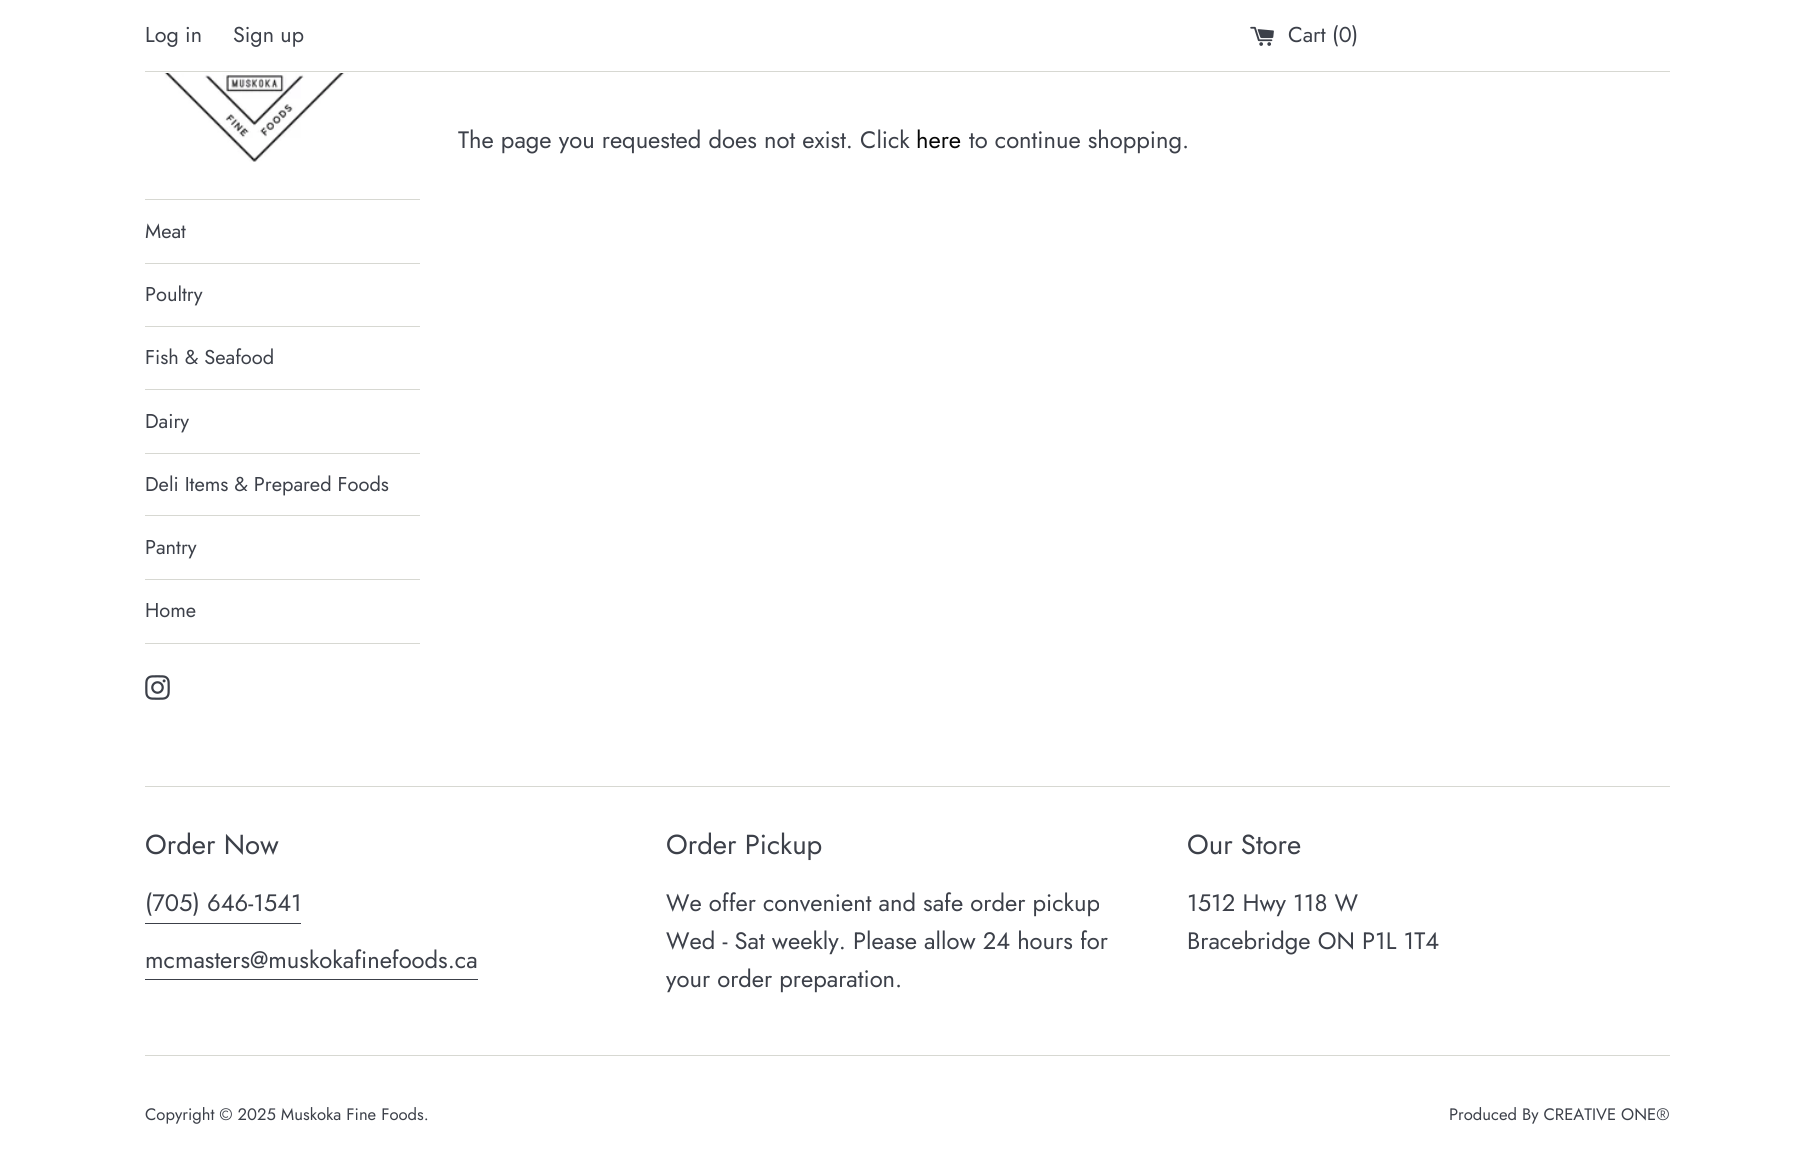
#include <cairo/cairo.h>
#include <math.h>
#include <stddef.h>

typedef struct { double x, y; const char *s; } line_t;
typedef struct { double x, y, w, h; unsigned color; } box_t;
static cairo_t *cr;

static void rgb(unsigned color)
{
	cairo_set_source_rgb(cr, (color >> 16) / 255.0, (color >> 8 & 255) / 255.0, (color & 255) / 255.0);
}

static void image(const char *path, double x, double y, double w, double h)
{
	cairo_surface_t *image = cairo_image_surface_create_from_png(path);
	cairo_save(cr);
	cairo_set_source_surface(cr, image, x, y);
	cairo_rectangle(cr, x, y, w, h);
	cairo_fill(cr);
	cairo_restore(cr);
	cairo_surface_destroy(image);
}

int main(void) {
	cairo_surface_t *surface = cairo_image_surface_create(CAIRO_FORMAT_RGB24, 1814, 1170);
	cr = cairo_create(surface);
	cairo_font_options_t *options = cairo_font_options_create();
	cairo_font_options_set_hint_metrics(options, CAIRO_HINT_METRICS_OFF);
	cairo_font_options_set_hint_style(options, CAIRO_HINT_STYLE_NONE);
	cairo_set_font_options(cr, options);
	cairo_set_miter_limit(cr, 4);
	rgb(0xffffff);
	cairo_paint(cr);
	image("img/1.png", 1250, 26, 24, 20);
	rgb(0xd7d8d2);
	cairo_rectangle(cr, 145, 71, 1525, 1);
	cairo_fill(cr);
	image("img/2.png", 145, 73, 219, 89);
	{
		static const box_t items[] = {
			{145, 199, 275, 1, 0xd7d8d2},
			{145, 263, 275, 1, 0xd7d8d2},
			{145, 326, 275, 1, 0xd7d8d2},
			{145, 389, 275, 1, 0xd7d8d2},
			{145, 453, 275, 1, 0xd7d8d2},
			{145, 515, 275, 1, 0xd7d8d2},
			{145, 579, 275, 1, 0xd7d8d2},
			{145, 643, 275, 1, 0xd7d8d2},
		};
		for (size_t i = 0; i < sizeof items / sizeof *items; i++) {
			rgb(items[i].color);
			cairo_rectangle(cr, items[i].x, items[i].y, items[i].w, items[i].h);
			cairo_fill(cr);
		}
	}
	image("img/3.png", 145, 675, 25, 25);
	{
		static const box_t items[] = {
			{145, 786, 1525, 1, 0xd7d8d2},
			{145, 923, 156, 1, 0x3c4049},
			{145, 979, 333, 1, 0x3c4049},
			{145, 1055, 1525, 1, 0xd7d8d2},
		};
		for (size_t i = 0; i < sizeof items / sizeof *items; i++) {
			rgb(items[i].color);
			cairo_rectangle(cr, items[i].x, items[i].y, items[i].w, items[i].h);
			cairo_fill(cr);
		}
	}
	cairo_select_font_face(cr, "Jost", CAIRO_FONT_SLANT_NORMAL, CAIRO_FONT_WEIGHT_NORMAL);
	cairo_set_font_size(cr, 21.5);
	rgb(0x3c4049);
	{
		static const line_t items[] = {
			{145, 42, "Log in"},
			{233, 42, "Sign up"},
			{1288, 42, "Cart (0)"},
		};
		for (size_t i = 0; i < sizeof items / sizeof *items; i++) {
			cairo_move_to(cr, items[i].x, items[i].y);
			cairo_show_text(cr, items[i].s);
		}
	}
	cairo_set_font_size(cr, 23.75);
	cairo_move_to(cr, 458, 148);
	cairo_show_text(cr, "The page you requested does not exist. Click");
	rgb(0x070707);
	cairo_move_to(cr, 916, 148);
	cairo_show_text(cr, "here");
	rgb(0x3c4049);
	cairo_move_to(cr, 969, 148);
	cairo_show_text(cr, "to continue shopping.");
	cairo_set_font_size(cr, 20);
	{
		static const line_t items[] = {
			{145, 238, "Meat"},
			{145, 301, "Poultry"},
			{145, 364, "Fish & Seafood"},
			{145, 428, "Dairy"},
			{145, 491, "Deli Items & Prepared Foods"},
			{145, 554, "Pantry"},
			{145, 617, "Home"},
		};
		for (size_t i = 0; i < sizeof items / sizeof *items; i++) {
			cairo_move_to(cr, items[i].x, items[i].y);
			cairo_show_text(cr, items[i].s);
		}
	}
	cairo_set_font_size(cr, 27.5);
	cairo_move_to(cr, 145, 854);
	cairo_show_text(cr, "Order Now");
	cairo_set_font_size(cr, 23.75);
	cairo_move_to(cr, 145, 911);
	cairo_show_text(cr, "(705) 646-1541");
	cairo_move_to(cr, 145, 968);
	cairo_show_text(cr, "mcmasters@muskokafinefoods.ca");
	cairo_set_font_size(cr, 27.5);
	cairo_move_to(cr, 666, 854);
	cairo_show_text(cr, "Order Pickup");
	cairo_set_font_size(cr, 23.75);
	{
		static const line_t items[] = {
			{666, 911, "We offer convenient and safe order pickup"},
			{666, 949, "Wed - Sat weekly. Please allow 24 hours for"},
			{666, 987, "your order preparation."},
		};
		for (size_t i = 0; i < sizeof items / sizeof *items; i++) {
			cairo_move_to(cr, items[i].x, items[i].y);
			cairo_show_text(cr, items[i].s);
		}
	}
	cairo_set_font_size(cr, 27.5);
	cairo_move_to(cr, 1187, 854);
	cairo_show_text(cr, "Our Store");
	cairo_set_font_size(cr, 23.75);
	cairo_move_to(cr, 1187, 911);
	cairo_show_text(cr, "1512 Hwy 118 W");
	cairo_move_to(cr, 1187, 949);
	cairo_show_text(cr, "Bracebridge ON P1L 1T4");
	cairo_set_font_size(cr, 16.6);
	cairo_move_to(cr, 145, 1120);
	cairo_show_text(cr, "Copyright © 2025 Muskoka Fine Foods.");
	cairo_move_to(cr, 1449, 1120);
	cairo_show_text(cr, "Produced By CREATIVE ONE®");
	cairo_surface_write_to_png(surface, "page.png");
	cairo_font_options_destroy(options);
	cairo_destroy(cr);
	cairo_surface_destroy(surface);
	return 0;
}
